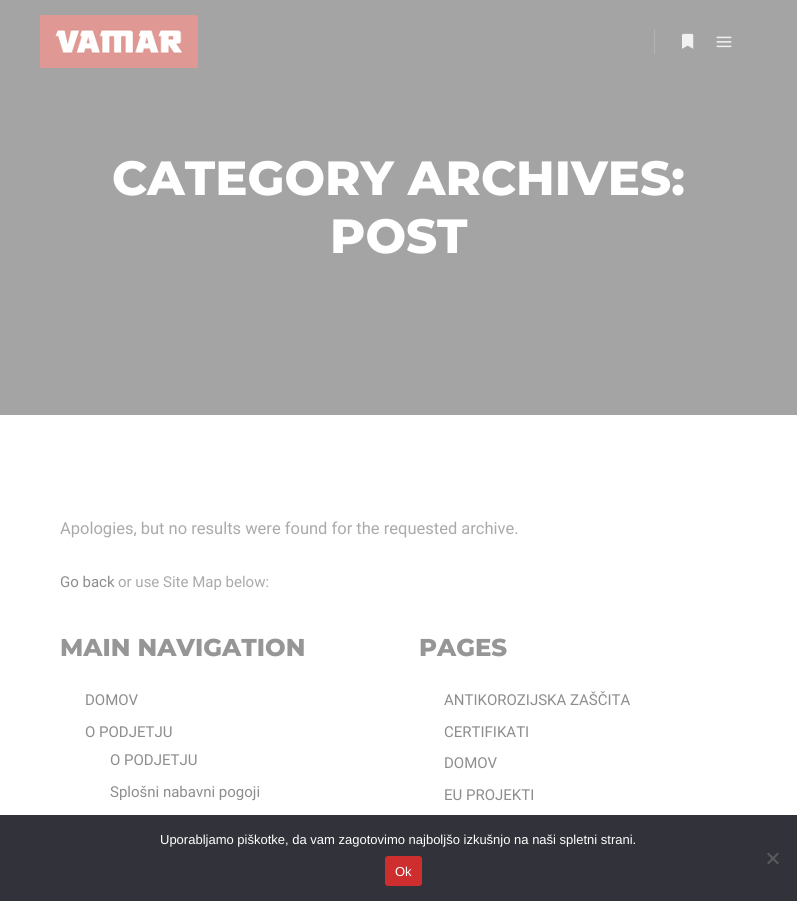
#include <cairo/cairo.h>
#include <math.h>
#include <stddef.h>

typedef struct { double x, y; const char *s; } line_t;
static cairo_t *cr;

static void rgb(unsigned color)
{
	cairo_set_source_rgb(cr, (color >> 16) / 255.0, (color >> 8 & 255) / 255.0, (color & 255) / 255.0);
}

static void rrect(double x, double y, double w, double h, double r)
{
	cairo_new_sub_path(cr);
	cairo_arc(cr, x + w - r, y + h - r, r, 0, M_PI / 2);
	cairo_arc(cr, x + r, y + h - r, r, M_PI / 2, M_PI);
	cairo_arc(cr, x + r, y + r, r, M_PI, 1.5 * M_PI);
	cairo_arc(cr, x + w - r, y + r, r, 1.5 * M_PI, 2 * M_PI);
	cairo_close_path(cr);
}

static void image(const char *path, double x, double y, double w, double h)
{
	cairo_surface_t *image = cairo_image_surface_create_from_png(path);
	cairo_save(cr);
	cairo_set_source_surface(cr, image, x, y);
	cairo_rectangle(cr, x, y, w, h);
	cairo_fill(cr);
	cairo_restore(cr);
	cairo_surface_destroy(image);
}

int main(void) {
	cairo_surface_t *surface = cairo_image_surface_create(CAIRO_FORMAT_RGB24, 797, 901);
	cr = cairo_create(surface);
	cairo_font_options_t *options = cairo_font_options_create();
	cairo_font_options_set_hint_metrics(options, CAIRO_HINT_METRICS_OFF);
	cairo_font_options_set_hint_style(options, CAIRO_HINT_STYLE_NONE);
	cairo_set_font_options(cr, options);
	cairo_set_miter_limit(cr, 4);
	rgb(0xffffff);
	cairo_paint(cr);
	rgb(0xa4a4a4);
	cairo_rectangle(cr, 0, 0, 797, 415);
	cairo_fill(cr);
	image("img/1.png", 40, 15, 158, 53);
	rgb(0xb4b4b4);
	cairo_rectangle(cr, 654, 29, 1, 25);
	cairo_fill(cr);
	image("img/2.png", 682, 33, 12, 16);
	image("img/3.png", 716, 36, 16, 12);
	rgb(0x32323a);
	cairo_rectangle(cr, 0, 815, 797, 86);
	cairo_fill(cr);
	rgb(0x59595d);
	cairo_new_path(cr);
	cairo_move_to(cr, 777.5, 852.5);
	cairo_line_to(cr, 779, 854);
	cairo_line_to(cr, 768.5, 864.5);
	cairo_line_to(cr, 767, 863);
	cairo_close_path(cr);
	cairo_fill(cr);
	cairo_new_path(cr);
	cairo_move_to(cr, 767, 854);
	cairo_line_to(cr, 768.5, 852.5);
	cairo_line_to(cr, 779, 863);
	cairo_line_to(cr, 777.5, 864.5);
	cairo_close_path(cr);
	cairo_fill(cr);
	rgb(0xcf2e2e);
	rrect(385, 856, 37, 30, 3);
	cairo_fill(cr);
	cairo_select_font_face(cr, "Montserrat ExtraBold", CAIRO_FONT_SLANT_NORMAL, CAIRO_FONT_WEIGHT_NORMAL);
	cairo_set_font_size(cr, 48);
	rgb(0xffffff);
	cairo_move_to(cr, 112, 195);
	cairo_show_text(cr, "CATEGORY ARCHIVES:");
	cairo_move_to(cr, 330, 253);
	cairo_show_text(cr, "POST");
	cairo_select_font_face(cr, "Roboto", CAIRO_FONT_SLANT_NORMAL, CAIRO_FONT_WEIGHT_NORMAL);
	cairo_set_font_size(cr, 16.5);
	rgb(0xaaaaaa);
	cairo_move_to(cr, 60, 534);
	cairo_show_text(cr, "Apologies, but no results were found for the requested archive.");
	cairo_set_font_size(cr, 15);
	rgb(0x8d8d8d);
	cairo_move_to(cr, 60, 587);
	cairo_show_text(cr, "Go back");
	rgb(0xaaaaaa);
	cairo_move_to(cr, 118, 587);
	cairo_show_text(cr, "or use Site Map below:");
	cairo_select_font_face(cr, "Montserrat ExtraBold", CAIRO_FONT_SLANT_NORMAL, CAIRO_FONT_WEIGHT_NORMAL);
	cairo_set_font_size(cr, 24.4);
	rgb(0x969696);
	cairo_move_to(cr, 60, 656);
	cairo_show_text(cr, "MAIN NAVIGATION");
	cairo_select_font_face(cr, "Roboto", CAIRO_FONT_SLANT_NORMAL, CAIRO_FONT_WEIGHT_NORMAL);
	cairo_set_font_size(cr, 15);
	rgb(0x8d8d8d);
	{
		static const line_t items[] = {
			{85, 705, "DOMOV"},
			{85, 737, "O PODJETJU"},
			{110, 765, "O PODJETJU"},
			{110, 797, "Splošni nabavni pogoji"},
		};
		for (size_t i = 0; i < sizeof items / sizeof *items; i++) {
			cairo_move_to(cr, items[i].x, items[i].y);
			cairo_show_text(cr, items[i].s);
		}
	}
	cairo_select_font_face(cr, "Montserrat ExtraBold", CAIRO_FONT_SLANT_NORMAL, CAIRO_FONT_WEIGHT_NORMAL);
	cairo_set_font_size(cr, 24.4);
	rgb(0x969696);
	cairo_move_to(cr, 419, 656);
	cairo_show_text(cr, "PAGES");
	cairo_select_font_face(cr, "Roboto", CAIRO_FONT_SLANT_NORMAL, CAIRO_FONT_WEIGHT_NORMAL);
	cairo_set_font_size(cr, 15);
	rgb(0x8d8d8d);
	{
		static const line_t items[] = {
			{444, 705, "ANTIKOROZIJSKA ZAŠČITA"},
			{444, 737, "CERTIFIKATI"},
			{444, 768, "DOMOV"},
			{444, 800, "EU PROJEKTI"},
		};
		for (size_t i = 0; i < sizeof items / sizeof *items; i++) {
			cairo_move_to(cr, items[i].x, items[i].y);
			cairo_show_text(cr, items[i].s);
		}
	}
	cairo_select_font_face(cr, "Liberation Sans", CAIRO_FONT_SLANT_NORMAL, CAIRO_FONT_WEIGHT_NORMAL);
	cairo_set_font_size(cr, 13);
	rgb(0xffffff);
	cairo_move_to(cr, 160, 844);
	cairo_show_text(cr, "Uporabljamo piškotke, da vam zagotovimo najboljšo izkušnjo na naši spletni strani.");
	cairo_move_to(cr, 395, 876);
	cairo_show_text(cr, "Ok");
	cairo_surface_write_to_png(surface, "page.png");
	cairo_font_options_destroy(options);
	cairo_destroy(cr);
	cairo_surface_destroy(surface);
	return 0;
}
